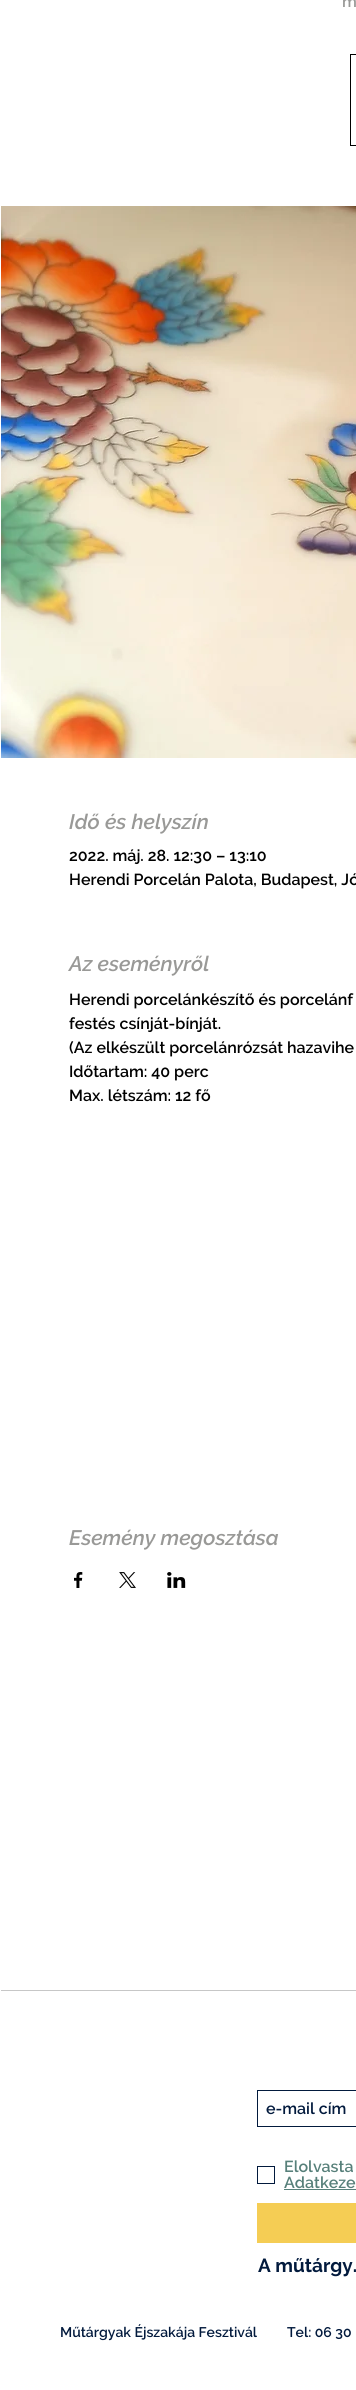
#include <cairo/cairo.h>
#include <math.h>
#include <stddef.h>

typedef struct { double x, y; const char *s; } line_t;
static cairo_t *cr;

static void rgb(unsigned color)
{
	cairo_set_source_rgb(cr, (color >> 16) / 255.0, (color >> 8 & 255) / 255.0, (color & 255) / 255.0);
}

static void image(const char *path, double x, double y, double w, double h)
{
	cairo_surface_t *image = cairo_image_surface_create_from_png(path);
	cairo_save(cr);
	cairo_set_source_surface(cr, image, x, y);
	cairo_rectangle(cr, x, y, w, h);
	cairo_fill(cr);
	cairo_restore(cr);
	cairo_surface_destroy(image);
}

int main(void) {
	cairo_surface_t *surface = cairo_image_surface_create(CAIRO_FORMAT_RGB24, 356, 2390);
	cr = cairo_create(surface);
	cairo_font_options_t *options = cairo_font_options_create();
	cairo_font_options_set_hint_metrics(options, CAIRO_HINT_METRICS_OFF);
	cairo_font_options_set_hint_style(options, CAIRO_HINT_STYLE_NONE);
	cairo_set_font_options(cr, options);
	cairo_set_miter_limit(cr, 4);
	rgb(0xffffff);
	cairo_paint(cr);
	cairo_rectangle(cr, 350.5, 54.5, 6, 91);
	rgb(0x000000);
	cairo_set_line_width(cr, 1);
	cairo_stroke(cr);
	image("img/1.png", 1, 206, 355, 552);
	image("img/2.png", 74, 1572, 9, 16);
	image("img/3.png", 119, 1572, 17, 16);
	image("img/4.png", 167, 1572, 19, 16);
	rgb(0xc7c7c7);
	cairo_rectangle(cr, 1, 1990, 355, 1);
	cairo_fill(cr);
	cairo_rectangle(cr, 257.5, 2090.5, 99, 36);
	rgb(0x021a3d);
	cairo_stroke(cr);
	cairo_rectangle(cr, 257.5, 2166.5, 17, 17);
	cairo_stroke(cr);
	rgb(0x57807a);
	cairo_rectangle(cr, 284, 2189, 72, 1);
	cairo_fill(cr);
	rgb(0xf5cd54);
	cairo_rectangle(cr, 257, 2203, 99, 40);
	cairo_fill(cr);
	cairo_select_font_face(cr, "Raleway SemiBold", CAIRO_FONT_SLANT_NORMAL, CAIRO_FONT_WEIGHT_NORMAL);
	cairo_set_font_size(cr, 16);
	rgb(0x999997);
	cairo_move_to(cr, 342, 7);
	cairo_show_text(cr, "m");
	cairo_select_font_face(cr, "Raleway SemiBold", CAIRO_FONT_SLANT_ITALIC, CAIRO_FONT_WEIGHT_NORMAL);
	cairo_set_font_size(cr, 21);
	cairo_move_to(cr, 69, 829);
	cairo_show_text(cr, "Idő és helyszín");
	cairo_select_font_face(cr, "Raleway SemiBold", CAIRO_FONT_SLANT_NORMAL, CAIRO_FONT_WEIGHT_NORMAL);
	cairo_set_font_size(cr, 16);
	rgb(0x000000);
	cairo_move_to(cr, 69, 861);
	cairo_show_text(cr, "2022. máj. 28. 12:30 – 13:10");
	cairo_move_to(cr, 69, 885);
	cairo_show_text(cr, "Herendi Porcelán Palota, Budapest, Jó");
	cairo_select_font_face(cr, "Raleway SemiBold", CAIRO_FONT_SLANT_ITALIC, CAIRO_FONT_WEIGHT_NORMAL);
	cairo_set_font_size(cr, 21);
	rgb(0x999997);
	cairo_move_to(cr, 69, 971);
	cairo_show_text(cr, "Az eseményről");
	cairo_select_font_face(cr, "Raleway SemiBold", CAIRO_FONT_SLANT_NORMAL, CAIRO_FONT_WEIGHT_NORMAL);
	cairo_set_font_size(cr, 16);
	rgb(0x000000);
	{
		static const line_t items[] = {
			{69, 1005, "Herendi porcelánkészítő és porcelánf"},
			{69, 1029, "festés csínját-bínját."},
			{69, 1053, "(Az elkészült porcelánrózsát hazavihe"},
			{69, 1077, "Időtartam: 40 perc"},
			{69, 1101, "Max. létszám: 12 fő"},
		};
		for (size_t i = 0; i < sizeof items / sizeof *items; i++) {
			cairo_move_to(cr, items[i].x, items[i].y);
			cairo_show_text(cr, items[i].s);
		}
	}
	cairo_select_font_face(cr, "Raleway SemiBold", CAIRO_FONT_SLANT_ITALIC, CAIRO_FONT_WEIGHT_NORMAL);
	cairo_set_font_size(cr, 21);
	rgb(0x999997);
	cairo_move_to(cr, 69, 1545);
	cairo_show_text(cr, "Esemény megosztása");
	cairo_select_font_face(cr, "Raleway SemiBold", CAIRO_FONT_SLANT_NORMAL, CAIRO_FONT_WEIGHT_NORMAL);
	cairo_set_font_size(cr, 16);
	rgb(0x021a3d);
	cairo_move_to(cr, 266, 2114);
	cairo_show_text(cr, "e-mail cím");
	rgb(0x57807a);
	cairo_move_to(cr, 284, 2172);
	cairo_show_text(cr, "Elolvasta");
	cairo_move_to(cr, 284, 2188);
	cairo_show_text(cr, "Adatkeze");
	cairo_select_font_face(cr, "Raleway", CAIRO_FONT_SLANT_NORMAL, CAIRO_FONT_WEIGHT_BOLD);
	cairo_set_font_size(cr, 19);
	rgb(0x021a3d);
	cairo_move_to(cr, 258, 2272);
	cairo_show_text(cr, "A műtárgy.");
	cairo_select_font_face(cr, "Raleway SemiBold", CAIRO_FONT_SLANT_NORMAL, CAIRO_FONT_WEIGHT_NORMAL);
	cairo_set_font_size(cr, 14);
	cairo_move_to(cr, 60, 2337);
	cairo_show_text(cr, "Műtárgyak Éjszakája Fesztivál");
	cairo_move_to(cr, 287, 2337);
	cairo_show_text(cr, "Tel: 06 30");
	cairo_surface_write_to_png(surface, "page.png");
	cairo_font_options_destroy(options);
	cairo_destroy(cr);
	cairo_surface_destroy(surface);
	return 0;
}
